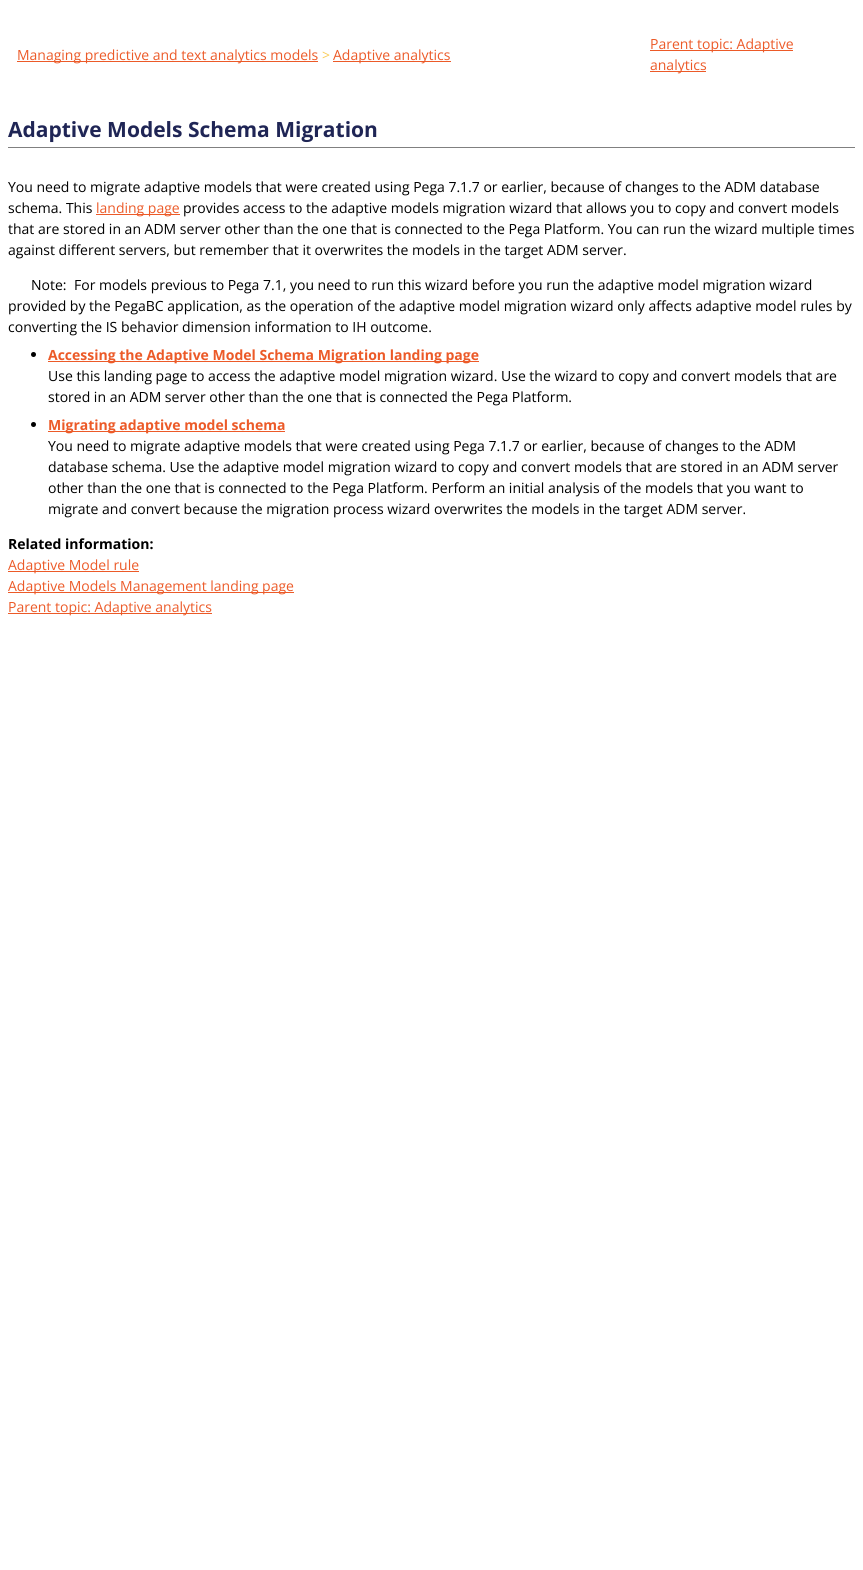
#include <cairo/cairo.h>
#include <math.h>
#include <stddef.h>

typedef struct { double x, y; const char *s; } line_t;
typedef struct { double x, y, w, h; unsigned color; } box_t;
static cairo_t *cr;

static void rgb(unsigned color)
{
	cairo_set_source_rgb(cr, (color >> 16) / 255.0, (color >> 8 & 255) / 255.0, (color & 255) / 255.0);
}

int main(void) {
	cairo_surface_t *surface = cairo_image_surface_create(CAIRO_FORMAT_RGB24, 863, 1570);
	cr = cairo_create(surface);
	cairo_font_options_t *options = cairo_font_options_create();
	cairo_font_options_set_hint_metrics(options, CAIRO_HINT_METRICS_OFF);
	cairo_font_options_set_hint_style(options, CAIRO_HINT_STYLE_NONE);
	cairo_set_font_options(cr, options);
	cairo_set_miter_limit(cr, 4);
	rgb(0xffffff);
	cairo_paint(cr);
	{
		static const box_t items[] = {
			{17, 61, 301, 1, 0xec5a28},
			{333, 61, 118, 1, 0xec5a28},
			{650, 50, 143, 1, 0xec5a28},
			{650, 71, 56, 1, 0xec5a28},
			{8, 147, 847, 1, 0x808080},
			{96, 214, 84, 1, 0xec5a28},
		};
		for (size_t i = 0; i < sizeof items / sizeof *items; i++) {
			rgb(items[i].color);
			cairo_rectangle(cr, items[i].x, items[i].y, items[i].w, items[i].h);
			cairo_fill(cr);
		}
	}
	rgb(0x000000);
	cairo_arc(cr, 33.5, 354.5, 2.5, 0, 2 * M_PI);
	cairo_fill(cr);
	rgb(0xec5a28);
	cairo_rectangle(cr, 48, 361, 431, 1);
	cairo_fill(cr);
	rgb(0x000000);
	cairo_arc(cr, 33.5, 424.5, 2.5, 0, 2 * M_PI);
	cairo_fill(cr);
	{
		static const box_t items[] = {
			{48, 431, 237, 1, 0xec5a28},
			{8, 571, 131, 1, 0xec5a28},
			{8, 592, 286, 1, 0xec5a28},
			{8, 613, 204, 1, 0xec5a28},
		};
		for (size_t i = 0; i < sizeof items / sizeof *items; i++) {
			rgb(items[i].color);
			cairo_rectangle(cr, items[i].x, items[i].y, items[i].w, items[i].h);
			cairo_fill(cr);
		}
	}
	cairo_select_font_face(cr, "Open Sans", CAIRO_FONT_SLANT_NORMAL, CAIRO_FONT_WEIGHT_NORMAL);
	cairo_set_font_size(cr, 14);
	cairo_move_to(cr, 17, 60);
	cairo_show_text(cr, "Managing predictive and text analytics models");
	rgb(0xf9cb55);
	cairo_move_to(cr, 322, 60);
	cairo_show_text(cr, ">");
	rgb(0xec5a28);
	{
		static const line_t items[] = {
			{333, 60, "Adaptive analytics"},
			{650, 49, "Parent topic: Adaptive"},
			{650, 70, "analytics"},
		};
		for (size_t i = 0; i < sizeof items / sizeof *items; i++) {
			cairo_move_to(cr, items[i].x, items[i].y);
			cairo_show_text(cr, items[i].s);
		}
	}
	cairo_select_font_face(cr, "Open Sans", CAIRO_FONT_SLANT_NORMAL, CAIRO_FONT_WEIGHT_BOLD);
	cairo_set_font_size(cr, 21);
	rgb(0x1f2555);
	cairo_move_to(cr, 8, 137);
	cairo_show_text(cr, "Adaptive Models Schema Migration");
	cairo_select_font_face(cr, "Open Sans", CAIRO_FONT_SLANT_NORMAL, CAIRO_FONT_WEIGHT_NORMAL);
	cairo_set_font_size(cr, 14);
	rgb(0x000000);
	cairo_move_to(cr, 8, 192);
	cairo_show_text(cr, "You need to migrate adaptive models that were created using Pega 7.1.7 or earlier, because of changes to the ADM database");
	cairo_move_to(cr, 8, 213);
	cairo_show_text(cr, "schema. This");
	rgb(0xec5a28);
	cairo_move_to(cr, 96, 213);
	cairo_show_text(cr, "landing page");
	rgb(0x000000);
	{
		static const line_t items[] = {
			{183, 213, "provides access to the adaptive models migration wizard that allows you to copy and convert models"},
			{8, 234, "that are stored in an ADM server other than the one that is connected to the Pega Platform. You can run the wizard multiple times"},
			{8, 255, "against different servers, but remember that it overwrites the models in the target ADM server."},
			{31, 290, "Note:"},
			{74, 290, "For models previous to Pega 7.1, you need to run this wizard before you run the adaptive model migration wizard"},
			{8, 311, "provided by the PegaBC application, as the operation of the adaptive model migration wizard only affects adaptive model rules by"},
			{8, 332, "converting the IS behavior dimension information to IH outcome."},
		};
		for (size_t i = 0; i < sizeof items / sizeof *items; i++) {
			cairo_move_to(cr, items[i].x, items[i].y);
			cairo_show_text(cr, items[i].s);
		}
	}
	cairo_select_font_face(cr, "Open Sans", CAIRO_FONT_SLANT_NORMAL, CAIRO_FONT_WEIGHT_BOLD);
	rgb(0xec5a28);
	cairo_move_to(cr, 48, 360);
	cairo_show_text(cr, "Accessing the Adaptive Model Schema Migration landing page");
	cairo_select_font_face(cr, "Open Sans", CAIRO_FONT_SLANT_NORMAL, CAIRO_FONT_WEIGHT_NORMAL);
	rgb(0x000000);
	cairo_move_to(cr, 48, 381);
	cairo_show_text(cr, "Use this landing page to access the adaptive model migration wizard. Use the wizard to copy and convert models that are");
	cairo_move_to(cr, 48, 402);
	cairo_show_text(cr, "stored in an ADM server other than the one that is connected the Pega Platform.");
	cairo_select_font_face(cr, "Open Sans", CAIRO_FONT_SLANT_NORMAL, CAIRO_FONT_WEIGHT_BOLD);
	rgb(0xec5a28);
	cairo_move_to(cr, 48, 430);
	cairo_show_text(cr, "Migrating adaptive model schema");
	cairo_select_font_face(cr, "Open Sans", CAIRO_FONT_SLANT_NORMAL, CAIRO_FONT_WEIGHT_NORMAL);
	rgb(0x000000);
	{
		static const line_t items[] = {
			{48, 451, "You need to migrate adaptive models that were created using Pega 7.1.7 or earlier, because of changes to the ADM"},
			{48, 472, "database schema. Use the adaptive model migration wizard to copy and convert models that are stored in an ADM server"},
			{48, 493, "other than the one that is connected to the Pega Platform. Perform an initial analysis of the models that you want to"},
			{48, 514, "migrate and convert because the migration process wizard overwrites the models in the target ADM server."},
		};
		for (size_t i = 0; i < sizeof items / sizeof *items; i++) {
			cairo_move_to(cr, items[i].x, items[i].y);
			cairo_show_text(cr, items[i].s);
		}
	}
	cairo_select_font_face(cr, "Open Sans", CAIRO_FONT_SLANT_NORMAL, CAIRO_FONT_WEIGHT_BOLD);
	cairo_move_to(cr, 8, 549);
	cairo_show_text(cr, "Related information:");
	cairo_select_font_face(cr, "Open Sans", CAIRO_FONT_SLANT_NORMAL, CAIRO_FONT_WEIGHT_NORMAL);
	rgb(0xec5a28);
	{
		static const line_t items[] = {
			{8, 570, "Adaptive Model rule"},
			{8, 591, "Adaptive Models Management landing page"},
			{8, 612, "Parent topic: Adaptive analytics"},
		};
		for (size_t i = 0; i < sizeof items / sizeof *items; i++) {
			cairo_move_to(cr, items[i].x, items[i].y);
			cairo_show_text(cr, items[i].s);
		}
	}
	cairo_surface_write_to_png(surface, "page.png");
	cairo_font_options_destroy(options);
	cairo_destroy(cr);
	cairo_surface_destroy(surface);
	return 0;
}
